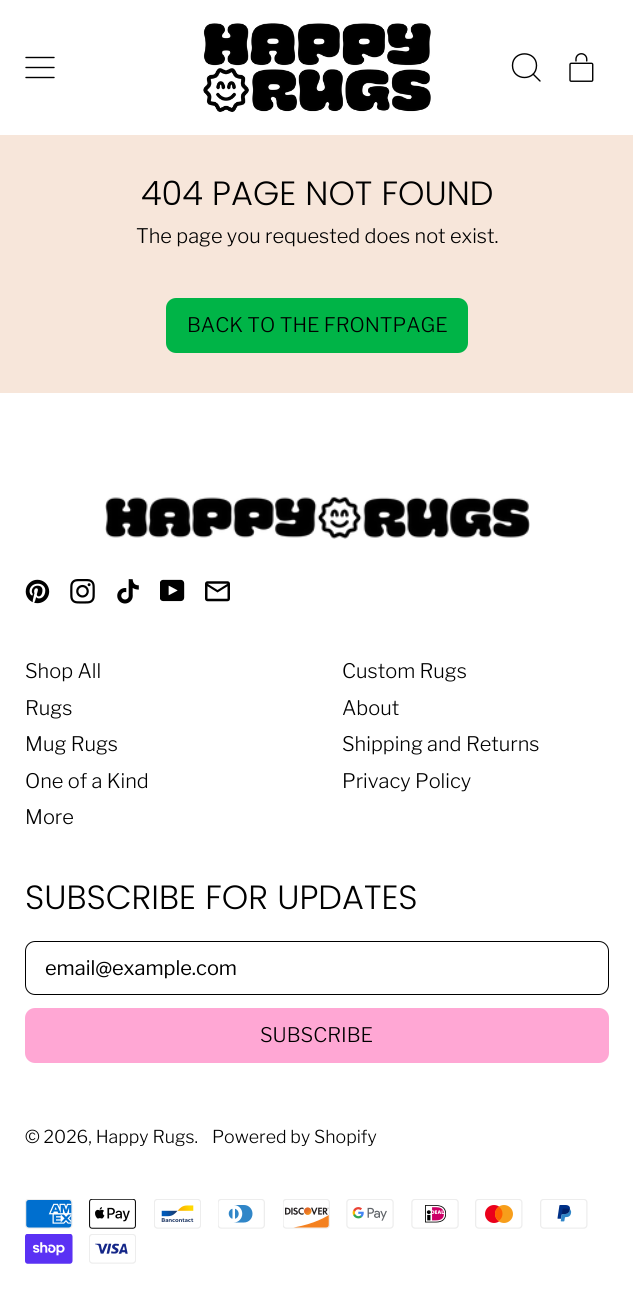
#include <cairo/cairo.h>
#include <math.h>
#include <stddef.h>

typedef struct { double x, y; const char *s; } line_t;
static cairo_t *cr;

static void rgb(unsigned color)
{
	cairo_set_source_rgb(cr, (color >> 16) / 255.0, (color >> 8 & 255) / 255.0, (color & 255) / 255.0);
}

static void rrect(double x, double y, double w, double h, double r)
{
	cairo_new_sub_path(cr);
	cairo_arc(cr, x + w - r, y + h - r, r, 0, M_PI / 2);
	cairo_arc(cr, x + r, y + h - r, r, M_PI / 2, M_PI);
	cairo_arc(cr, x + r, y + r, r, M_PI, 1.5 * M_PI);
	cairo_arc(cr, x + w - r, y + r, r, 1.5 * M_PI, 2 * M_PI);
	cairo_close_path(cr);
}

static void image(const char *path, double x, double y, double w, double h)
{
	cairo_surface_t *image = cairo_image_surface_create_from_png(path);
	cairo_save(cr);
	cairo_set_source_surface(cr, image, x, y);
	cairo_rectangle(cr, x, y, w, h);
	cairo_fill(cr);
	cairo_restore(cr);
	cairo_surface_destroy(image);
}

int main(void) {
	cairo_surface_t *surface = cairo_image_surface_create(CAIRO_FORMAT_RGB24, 633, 1308);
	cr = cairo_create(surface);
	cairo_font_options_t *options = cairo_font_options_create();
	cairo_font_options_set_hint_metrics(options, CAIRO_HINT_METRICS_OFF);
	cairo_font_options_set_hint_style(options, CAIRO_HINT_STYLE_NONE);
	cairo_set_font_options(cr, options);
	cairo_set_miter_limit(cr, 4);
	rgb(0xffffff);
	cairo_paint(cr);
	cairo_new_path(cr);
	cairo_move_to(cr, 54, 77.5);
	cairo_line_to(cr, 26, 77.5);
	cairo_move_to(cr, 54, 67.5);
	cairo_line_to(cr, 26, 67.5);
	cairo_move_to(cr, 54, 57.5);
	cairo_line_to(cr, 26, 57.5);
	rgb(0x000000);
	cairo_set_line_width(cr, 1.4);
	cairo_set_line_cap(cr, CAIRO_LINE_CAP_ROUND);
	cairo_set_line_join(cr, CAIRO_LINE_JOIN_ROUND);
	cairo_stroke(cr);
	image("img/1.png", 203, 23, 228, 90);
	cairo_new_path(cr);
	cairo_move_to(cr, 512.5, 65.5);
	cairo_curve_to(cr, 512.5, 81.5, 536.5, 81.5, 536.5, 65.5);
	cairo_curve_to(cr, 536.5, 50, 512.5, 50, 512.5, 65.5);
	cairo_close_path(cr);
	cairo_move_to(cr, 540, 81);
	cairo_line_to(cr, 533, 74);
	cairo_stroke(cr);
	image("img/2.png", 569, 53, 25, 29);
	rgb(0xf7e6da);
	cairo_rectangle(cr, 0, 135, 633, 258);
	cairo_fill(cr);
	rgb(0x00b447);
	rrect(166, 298, 302, 55, 10);
	cairo_fill(cr);
	image("img/3.png", 105, 496, 425, 43);
	image("img/4.png", 25, 579, 25, 25);
	image("img/5.png", 70, 579, 25, 25);
	image("img/6.png", 117, 579, 22, 25);
	image("img/7.png", 160, 579, 25, 23);
	image("img/8.png", 205, 581, 25, 21);
	rrect(25.5, 941.5, 583, 53, 9.5);
	rgb(0x000000);
	cairo_set_line_width(cr, 1);
	cairo_set_line_cap(cr, CAIRO_LINE_CAP_BUTT);
	cairo_set_line_join(cr, CAIRO_LINE_JOIN_MITER);
	cairo_stroke(cr);
	rgb(0xffa7d4);
	rrect(25, 1008, 584, 55, 10);
	cairo_fill(cr);
	image("img/9.png", 25, 1199, 48, 30);
	image("img/10.png", 89, 1199, 47, 30);
	image("img/11.png", 154, 1199, 47, 30);
	image("img/12.png", 218, 1199, 47, 30);
	image("img/13.png", 283, 1199, 47, 30);
	image("img/14.png", 346, 1199, 48, 30);
	image("img/15.png", 411, 1199, 48, 30);
	image("img/16.png", 475, 1199, 48, 30);
	image("img/17.png", 540, 1199, 48, 30);
	image("img/18.png", 25, 1234, 48, 30);
	image("img/19.png", 89, 1234, 47, 30);
	cairo_select_font_face(cr, "Poppins Light", CAIRO_FONT_SLANT_NORMAL, CAIRO_FONT_WEIGHT_NORMAL);
	cairo_set_font_size(cr, 33.6);
	rgb(0x000000);
	cairo_move_to(cr, 141, 205);
	cairo_show_text(cr, "404 PAGE NOT FOUND");
	cairo_select_font_face(cr, "Libre Franklin Light", CAIRO_FONT_SLANT_NORMAL, CAIRO_FONT_WEIGHT_NORMAL);
	cairo_set_font_size(cr, 20);
	{
		static const line_t items[] = {
			{136, 243, "The page you requested does not exist."},
			{187, 332, "BACK TO THE FRONTPAGE"},
			{25, 678, "Shop All"},
			{25, 715, "Rugs"},
			{25, 751, "Mug Rugs"},
			{25, 788, "One of a Kind"},
			{25, 824, "More"},
			{342, 678, "Custom Rugs"},
			{342, 715, "About"},
			{342, 751, "Shipping and Returns"},
			{342, 788, "Privacy Policy"},
		};
		for (size_t i = 0; i < sizeof items / sizeof *items; i++) {
			cairo_move_to(cr, items[i].x, items[i].y);
			cairo_show_text(cr, items[i].s);
		}
	}
	cairo_select_font_face(cr, "Poppins Light", CAIRO_FONT_SLANT_NORMAL, CAIRO_FONT_WEIGHT_NORMAL);
	cairo_set_font_size(cr, 33.6);
	cairo_move_to(cr, 25, 909);
	cairo_show_text(cr, "SUBSCRIBE FOR UPDATES");
	cairo_select_font_face(cr, "Libre Franklin", CAIRO_FONT_SLANT_NORMAL, CAIRO_FONT_WEIGHT_NORMAL);
	cairo_set_font_size(cr, 20);
	cairo_move_to(cr, 45, 975);
	cairo_show_text(cr, "email@example.com");
	cairo_select_font_face(cr, "Libre Franklin Light", CAIRO_FONT_SLANT_NORMAL, CAIRO_FONT_WEIGHT_NORMAL);
	cairo_move_to(cr, 260, 1042);
	cairo_show_text(cr, "SUBSCRIBE");
	cairo_set_font_size(cr, 17.75);
	cairo_move_to(cr, 25, 1143);
	cairo_show_text(cr, "© 2026, Happy Rugs.");
	cairo_move_to(cr, 212, 1143);
	cairo_show_text(cr, "Powered by Shopify");
	cairo_surface_write_to_png(surface, "page.png");
	cairo_font_options_destroy(options);
	cairo_destroy(cr);
	cairo_surface_destroy(surface);
	return 0;
}
